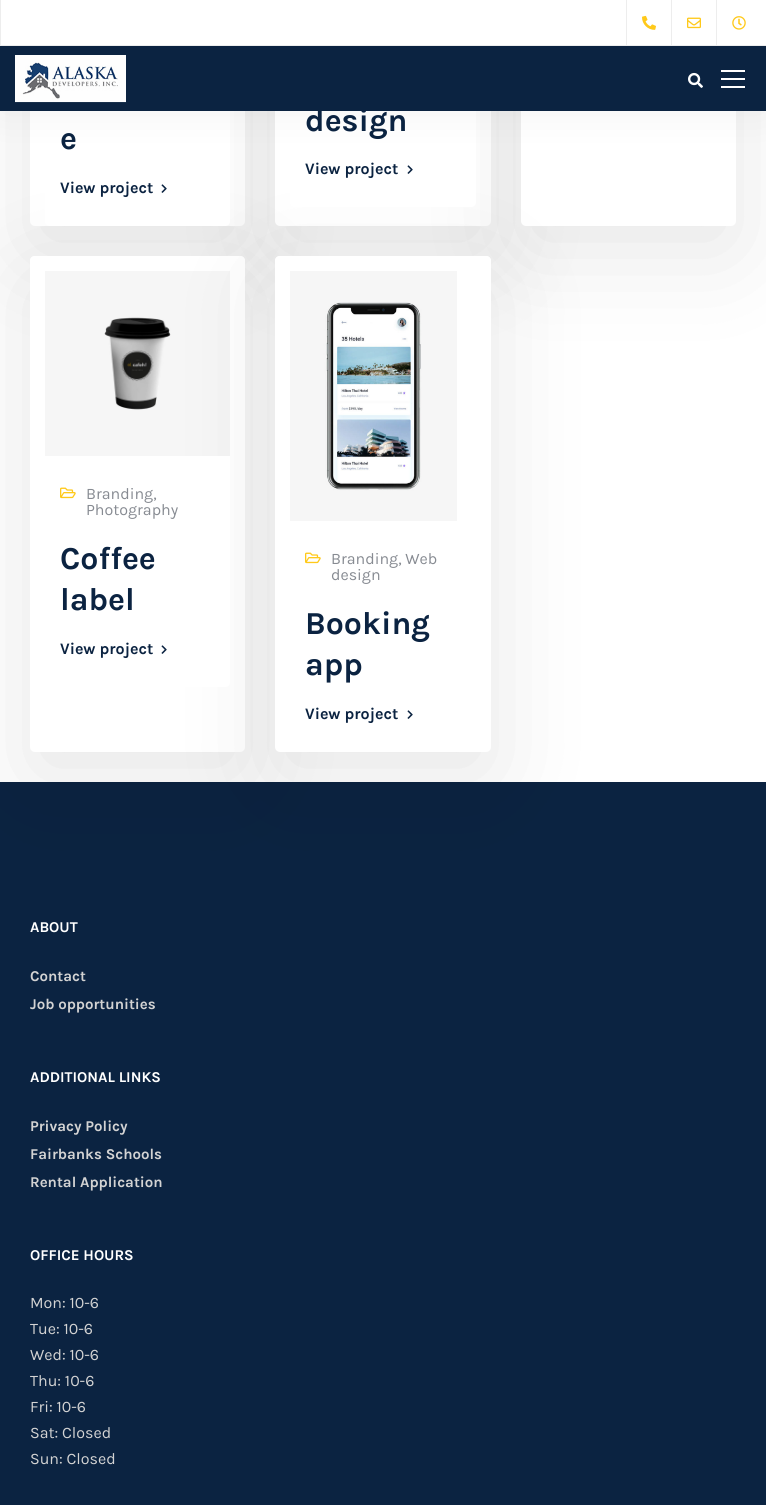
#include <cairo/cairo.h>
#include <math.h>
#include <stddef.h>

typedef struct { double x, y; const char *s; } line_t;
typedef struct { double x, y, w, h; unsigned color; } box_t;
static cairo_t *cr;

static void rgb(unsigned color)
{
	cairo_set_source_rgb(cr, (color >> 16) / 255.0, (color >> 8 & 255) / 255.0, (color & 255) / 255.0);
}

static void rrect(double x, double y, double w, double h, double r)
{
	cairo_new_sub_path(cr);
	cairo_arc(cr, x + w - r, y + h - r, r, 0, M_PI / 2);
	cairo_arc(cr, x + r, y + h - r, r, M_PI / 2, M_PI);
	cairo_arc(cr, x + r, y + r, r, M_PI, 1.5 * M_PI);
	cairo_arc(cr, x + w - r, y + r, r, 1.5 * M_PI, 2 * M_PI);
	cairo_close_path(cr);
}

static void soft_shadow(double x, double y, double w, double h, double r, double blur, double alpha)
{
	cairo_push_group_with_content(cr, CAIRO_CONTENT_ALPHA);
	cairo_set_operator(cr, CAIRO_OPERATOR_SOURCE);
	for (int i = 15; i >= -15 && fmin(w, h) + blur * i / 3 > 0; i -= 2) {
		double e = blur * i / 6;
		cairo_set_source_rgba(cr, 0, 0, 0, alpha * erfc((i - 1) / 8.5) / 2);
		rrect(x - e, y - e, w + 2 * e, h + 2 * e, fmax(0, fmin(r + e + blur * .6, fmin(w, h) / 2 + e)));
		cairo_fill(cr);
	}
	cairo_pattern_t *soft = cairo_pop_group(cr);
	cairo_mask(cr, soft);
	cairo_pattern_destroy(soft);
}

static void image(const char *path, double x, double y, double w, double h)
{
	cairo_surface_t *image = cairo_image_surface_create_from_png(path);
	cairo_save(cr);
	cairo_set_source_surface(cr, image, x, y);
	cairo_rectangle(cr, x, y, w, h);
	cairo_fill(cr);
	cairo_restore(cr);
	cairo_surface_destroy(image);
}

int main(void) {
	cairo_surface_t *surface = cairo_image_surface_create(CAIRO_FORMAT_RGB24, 766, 1505);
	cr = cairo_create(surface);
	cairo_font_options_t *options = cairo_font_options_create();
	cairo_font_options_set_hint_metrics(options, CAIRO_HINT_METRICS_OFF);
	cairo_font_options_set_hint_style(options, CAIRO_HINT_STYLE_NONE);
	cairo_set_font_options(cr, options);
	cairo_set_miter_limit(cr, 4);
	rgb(0xffffff);
	cairo_paint(cr);
	rgb(0x000000);
	soft_shadow(30, -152, 215, 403, 5, 49, 0.1);
	rgb(0xffffff);
	rrect(30, -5, 215, 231, 5);
	cairo_fill(cr);
	rgb(0x000000);
	soft_shadow(275, -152, 216, 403, 5, 49, 0.1);
	rgb(0xffffff);
	rrect(275, -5, 216, 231, 5);
	cairo_fill(cr);
	rgb(0x0b2341);
	cairo_rectangle(cr, 0, 782, 766, 723);
	cairo_fill(cr);
	rgb(0x000000);
	soft_shadow(30, 281, 215, 496, 5, 49, 0.1);
	soft_shadow(521, -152, 215, 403, 5, 49, 0.1);
	rgb(0xffffff);
	rrect(521, -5, 215, 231, 5);
	cairo_fill(cr);
	rrect(30, 256, 215, 496, 5);
	cairo_fill(cr);
	cairo_new_path(cr);
	cairo_move_to(cr, 35, 256);
	cairo_line_to(cr, 240, 256);
	cairo_curve_to(cr, 243, 256, 245, 258, 245, 261);
	cairo_line_to(cr, 245, 456);
	cairo_line_to(cr, 30, 456);
	cairo_line_to(cr, 30, 261);
	cairo_curve_to(cr, 30, 258, 32, 256, 35, 256);
	cairo_close_path(cr);
	cairo_fill(cr);
	image("img/7.png", 45, 271, 185, 185);
	rgb(0x000000);
	soft_shadow(275, 281, 216, 496, 5, 49, 0.1);
	rgb(0xffffff);
	cairo_new_path(cr);
	cairo_move_to(cr, 45, -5);
	cairo_line_to(cr, 230, -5);
	cairo_line_to(cr, 230, 221);
	cairo_curve_to(cr, 230, 224, 228, 226, 225, 226);
	cairo_line_to(cr, 50, 226);
	cairo_curve_to(cr, 47, 226, 45, 224, 45, 221);
	cairo_close_path(cr);
	cairo_fill(cr);
	cairo_new_path(cr);
	cairo_move_to(cr, 290, -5);
	cairo_line_to(cr, 476, -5);
	cairo_line_to(cr, 476, 202);
	cairo_curve_to(cr, 476, 205, 474, 207, 471, 207);
	cairo_line_to(cr, 295, 207);
	cairo_curve_to(cr, 292, 207, 290, 205, 290, 202);
	cairo_close_path(cr);
	cairo_fill(cr);
	image("img/6.png", 407, 165, 6, 9);
	rgb(0x0f0f0f);
	soft_shadow(0, 2, 766, 111, 0, 20, 0.05);
	{
		static const box_t items[] = {
			{1, 0, 765, 45, 0xffffff},
			{0, 45, 766, 1, 0xededed},
			{0, 0, 1, 45, 0xededed},
			{626, 0, 1, 45, 0xededed},
			{671, 0, 1, 45, 0xededed},
		};
		for (size_t i = 0; i < sizeof items / sizeof *items; i++) {
			rgb(items[i].color);
			cairo_rectangle(cr, items[i].x, items[i].y, items[i].w, items[i].h);
			cairo_fill(cr);
		}
	}
	image("img/1.png", 642, 15, 14, 15);
	cairo_rectangle(cr, 716, 0, 1, 45);
	cairo_fill(cr);
	image("img/2.png", 687, 17, 14, 12);
	image("img/3.png", 732, 16, 14, 14);
	rgb(0x0b2341);
	cairo_rectangle(cr, 0, 46, 766, 65);
	cairo_fill(cr);
	image("img/4.png", 15, 55, 111, 48);
	image("img/5.png", 688, 72, 15, 16);
	{
		static const box_t items[] = {
			{721, 86, 24, 2, 0xffffff},
			{721, 70, 24, 2, 0xffffff},
			{721, 78, 24, 2, 0xffffff},
		};
		for (size_t i = 0; i < sizeof items / sizeof *items; i++) {
			rgb(items[i].color);
			cairo_rectangle(cr, items[i].x, items[i].y, items[i].w, items[i].h);
			cairo_fill(cr);
		}
	}
	image("img/6.png", 161, 184, 6, 9);
	cairo_new_path(cr);
	cairo_move_to(cr, 45, 456);
	cairo_line_to(cr, 230, 456);
	cairo_line_to(cr, 230, 682);
	cairo_curve_to(cr, 230, 685, 228, 687, 225, 687);
	cairo_line_to(cr, 50, 687);
	cairo_curve_to(cr, 47, 687, 45, 685, 45, 682);
	cairo_close_path(cr);
	cairo_fill(cr);
	image("img/8.png", 60, 487, 16, 12);
	image("img/6.png", 161, 645, 6, 9);
	rrect(275, 256, 216, 496, 5);
	cairo_fill(cr);
	cairo_new_path(cr);
	cairo_move_to(cr, 280, 256);
	cairo_line_to(cr, 486, 256);
	cairo_curve_to(cr, 489, 256, 491, 258, 491, 261);
	cairo_line_to(cr, 491, 521);
	cairo_line_to(cr, 275, 521);
	cairo_line_to(cr, 275, 261);
	cairo_curve_to(cr, 275, 258, 277, 256, 280, 256);
	cairo_close_path(cr);
	cairo_fill(cr);
	image("img/9.png", 290, 271, 167, 250);
	image("img/8.png", 305, 552, 16, 12);
	image("img/6.png", 407, 710, 6, 9);
	cairo_select_font_face(cr, "Karla", CAIRO_FONT_SLANT_NORMAL, CAIRO_FONT_WEIGHT_BOLD);
	cairo_set_font_size(cr, 32);
	rgb(0x0b2341);
	cairo_move_to(cr, 60, 149);
	cairo_show_text(cr, "e");
	cairo_set_font_size(cr, 16);
	cairo_move_to(cr, 60, 193);
	cairo_show_text(cr, "View project");
	cairo_set_font_size(cr, 32);
	cairo_move_to(cr, 305, 131);
	cairo_show_text(cr, "design");
	cairo_set_font_size(cr, 16);
	cairo_move_to(cr, 305, 174);
	cairo_show_text(cr, "View project");
	cairo_select_font_face(cr, "Karla", CAIRO_FONT_SLANT_NORMAL, CAIRO_FONT_WEIGHT_NORMAL);
	rgb(0x878b92);
	cairo_move_to(cr, 86, 499);
	cairo_show_text(cr, "Branding,");
	cairo_move_to(cr, 86, 515);
	cairo_show_text(cr, "Photography");
	cairo_select_font_face(cr, "Karla", CAIRO_FONT_SLANT_NORMAL, CAIRO_FONT_WEIGHT_BOLD);
	cairo_set_font_size(cr, 32);
	rgb(0x0b2341);
	cairo_move_to(cr, 60, 569);
	cairo_show_text(cr, "Coffee");
	cairo_move_to(cr, 60, 610);
	cairo_show_text(cr, "label");
	cairo_set_font_size(cr, 16);
	cairo_move_to(cr, 60, 654);
	cairo_show_text(cr, "View project");
	cairo_select_font_face(cr, "Karla", CAIRO_FONT_SLANT_NORMAL, CAIRO_FONT_WEIGHT_NORMAL);
	rgb(0x878b92);
	cairo_move_to(cr, 331, 564);
	cairo_show_text(cr, "Branding, Web");
	cairo_move_to(cr, 331, 580);
	cairo_show_text(cr, "design");
	cairo_select_font_face(cr, "Karla", CAIRO_FONT_SLANT_NORMAL, CAIRO_FONT_WEIGHT_BOLD);
	cairo_set_font_size(cr, 32);
	rgb(0x0b2341);
	cairo_move_to(cr, 305, 634);
	cairo_show_text(cr, "Booking");
	cairo_move_to(cr, 305, 675);
	cairo_show_text(cr, "app");
	cairo_set_font_size(cr, 16);
	cairo_move_to(cr, 305, 719);
	cairo_show_text(cr, "View project");
	cairo_set_font_size(cr, 15);
	rgb(0xffffff);
	cairo_move_to(cr, 30, 932);
	cairo_show_text(cr, "ABOUT");
	rgb(0xd3d3d3);
	cairo_move_to(cr, 30, 981);
	cairo_show_text(cr, "Contact");
	cairo_move_to(cr, 30, 1009);
	cairo_show_text(cr, "Job opportunities");
	rgb(0xffffff);
	cairo_move_to(cr, 30, 1082);
	cairo_show_text(cr, "ADDITIONAL LINKS");
	rgb(0xd3d3d3);
	{
		static const line_t items[] = {
			{30, 1131, "Privacy Policy"},
			{30, 1159, "Fairbanks Schools"},
			{30, 1187, "Rental Application"},
		};
		for (size_t i = 0; i < sizeof items / sizeof *items; i++) {
			cairo_move_to(cr, items[i].x, items[i].y);
			cairo_show_text(cr, items[i].s);
		}
	}
	rgb(0xffffff);
	cairo_move_to(cr, 30, 1260);
	cairo_show_text(cr, "OFFICE HOURS");
	cairo_select_font_face(cr, "Karla", CAIRO_FONT_SLANT_NORMAL, CAIRO_FONT_WEIGHT_NORMAL);
	cairo_set_font_size(cr, 16);
	rgb(0xd3d3d3);
	{
		static const line_t items[] = {
			{30, 1308, "Mon: 10-6"},
			{30, 1334, "Tue: 10-6"},
			{30, 1360, "Wed: 10-6"},
			{30, 1386, "Thu: 10-6"},
			{30, 1412, "Fri: 10-6"},
			{30, 1438, "Sat: Closed"},
			{30, 1464, "Sun: Closed"},
		};
		for (size_t i = 0; i < sizeof items / sizeof *items; i++) {
			cairo_move_to(cr, items[i].x, items[i].y);
			cairo_show_text(cr, items[i].s);
		}
	}
	cairo_surface_write_to_png(surface, "page.png");
	cairo_font_options_destroy(options);
	cairo_destroy(cr);
	cairo_surface_destroy(surface);
	return 0;
}
